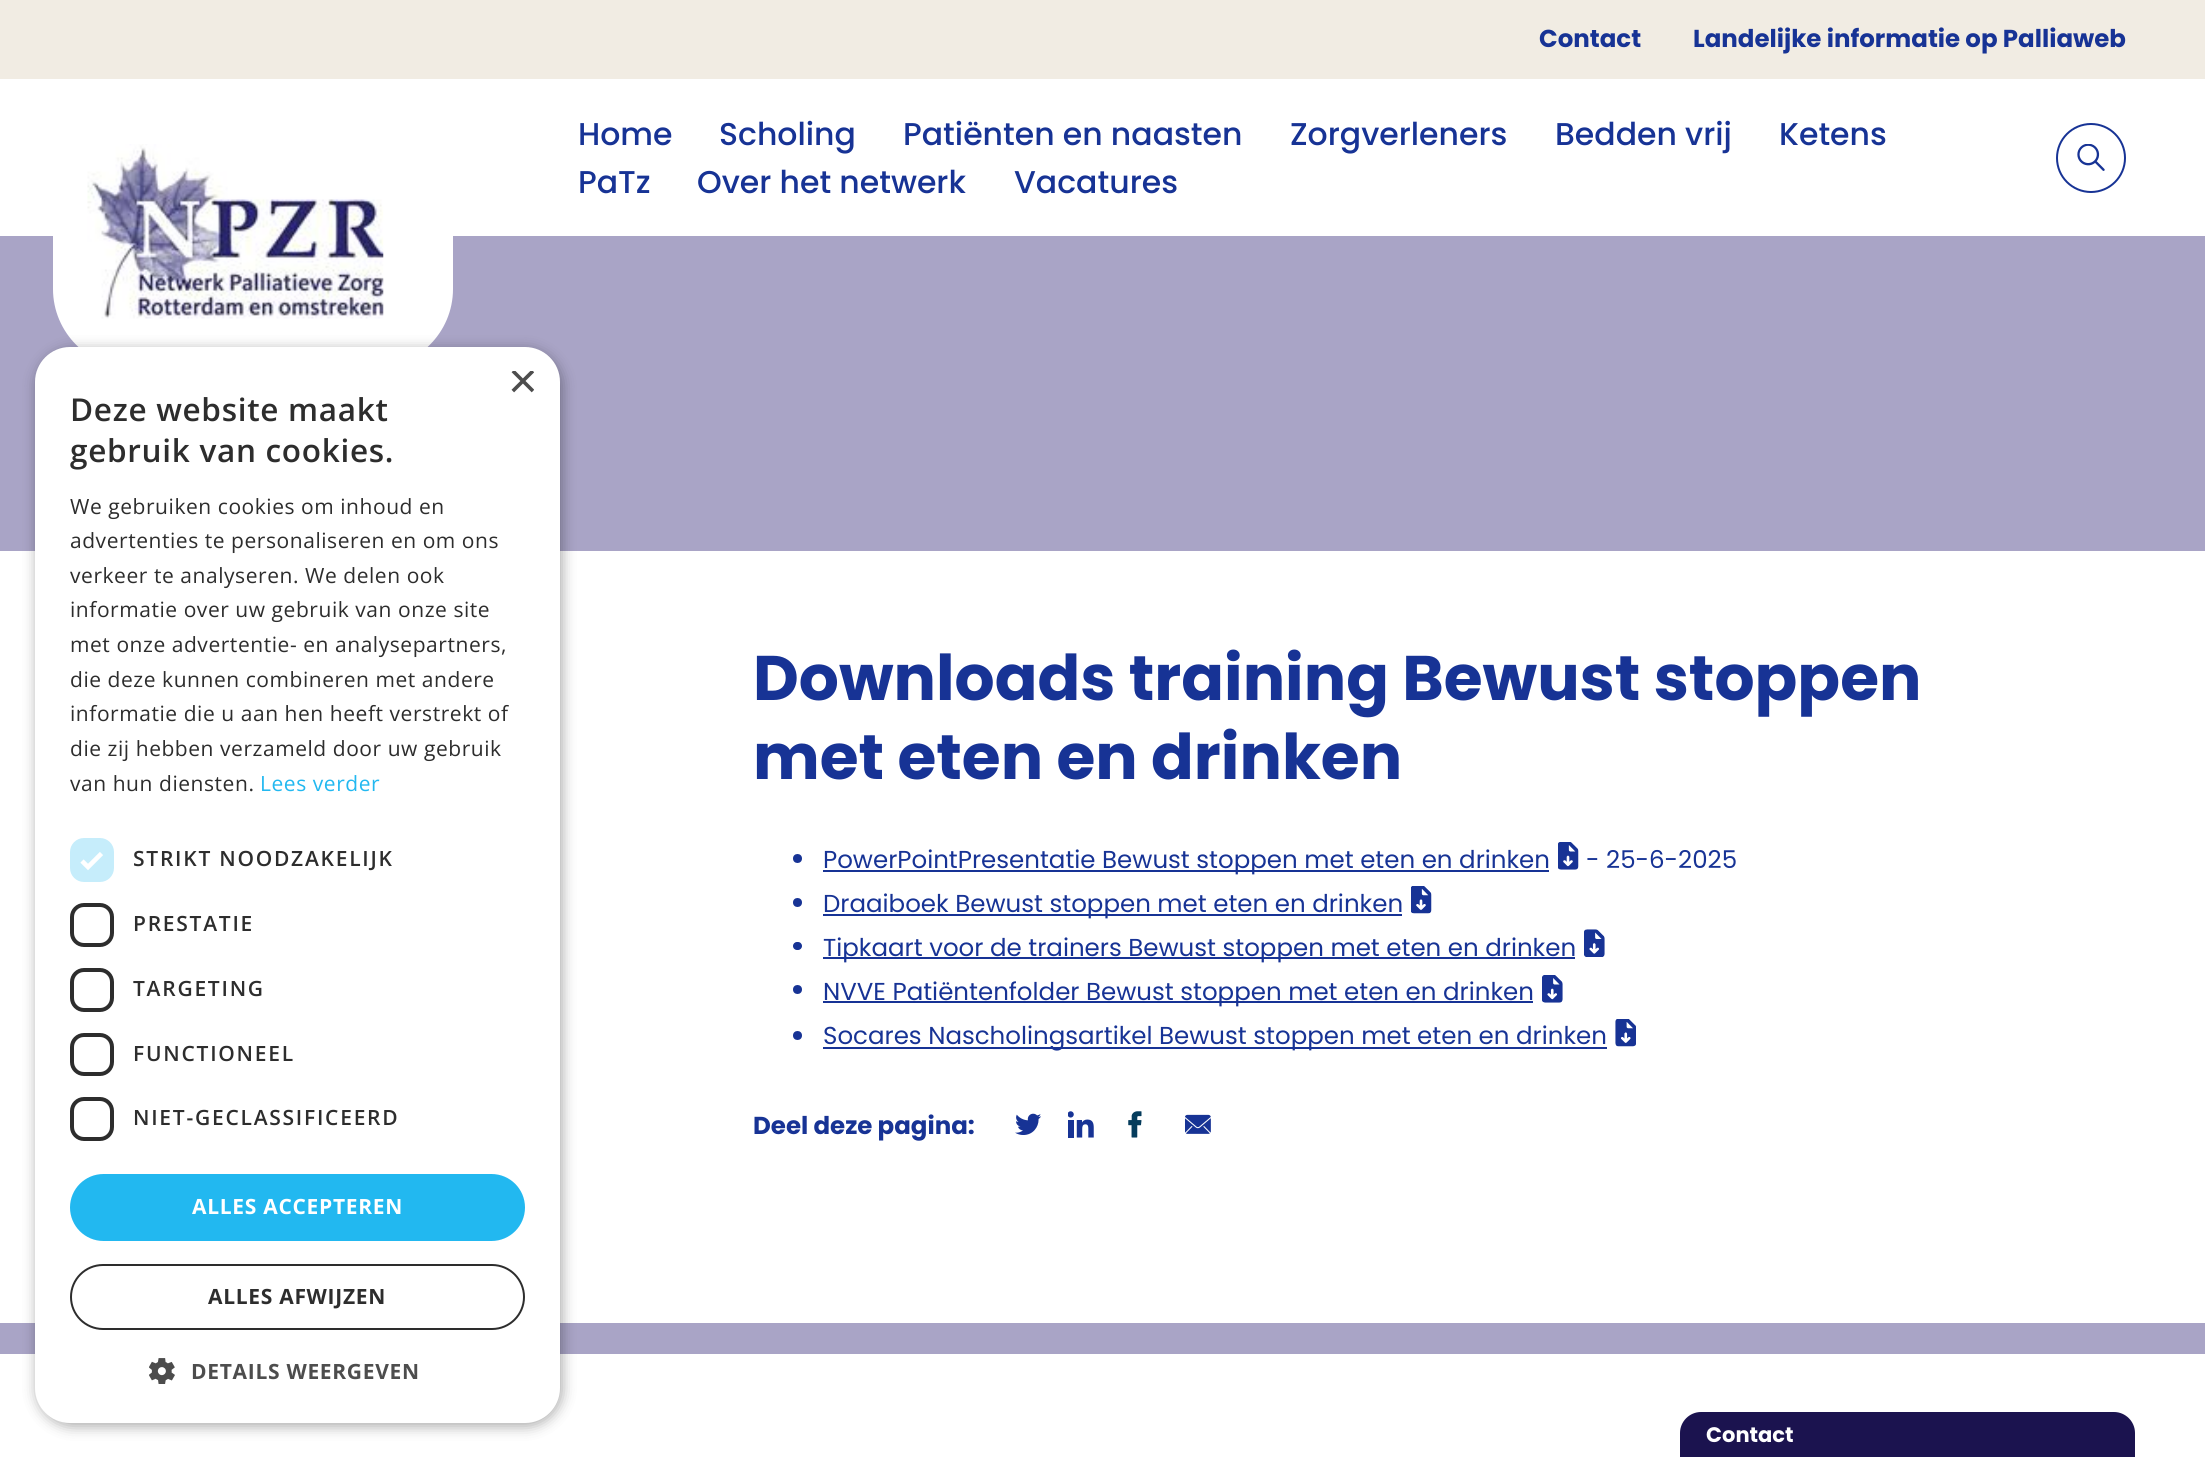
#include <cairo/cairo.h>
#include <math.h>
#include <stddef.h>

typedef struct { double x, y; const char *s; } line_t;
typedef struct { double x, y, w, h; unsigned color; } box_t;
static cairo_t *cr;

static void rgb(unsigned color)
{
	cairo_set_source_rgb(cr, (color >> 16) / 255.0, (color >> 8 & 255) / 255.0, (color & 255) / 255.0);
}

static void tracked(double x, double y, const char *s, double letter, double word)
{
	cairo_move_to(cr, x, y);
	while (*s) {
		char ch[5] = {0};
		int n = 0;
		do ch[n++] = *s++; while ((*s & 0xC0) == 0x80);
		cairo_show_text(cr, ch);
		cairo_rel_move_to(cr, letter + word * (*ch == ' '), 0);
	}
}

static void rrect(double x, double y, double w, double h, double r)
{
	cairo_new_sub_path(cr);
	cairo_arc(cr, x + w - r, y + h - r, r, 0, M_PI / 2);
	cairo_arc(cr, x + r, y + h - r, r, M_PI / 2, M_PI);
	cairo_arc(cr, x + r, y + r, r, M_PI, 1.5 * M_PI);
	cairo_arc(cr, x + w - r, y + r, r, 1.5 * M_PI, 2 * M_PI);
	cairo_close_path(cr);
}

static void soft_shadow(double x, double y, double w, double h, double r, double blur, double alpha)
{
	cairo_push_group_with_content(cr, CAIRO_CONTENT_ALPHA);
	cairo_set_operator(cr, CAIRO_OPERATOR_SOURCE);
	for (int i = 15; i >= -15 && fmin(w, h) + blur * i / 3 > 0; i -= 2) {
		double e = blur * i / 6;
		cairo_set_source_rgba(cr, 0, 0, 0, alpha * erfc((i - 1) / 8.5) / 2);
		rrect(x - e, y - e, w + 2 * e, h + 2 * e, fmax(0, fmin(r + e + blur * .6, fmin(w, h) / 2 + e)));
		cairo_fill(cr);
	}
	cairo_pattern_t *soft = cairo_pop_group(cr);
	cairo_mask(cr, soft);
	cairo_pattern_destroy(soft);
}

static void image(const char *path, double x, double y, double w, double h)
{
	cairo_surface_t *image = cairo_image_surface_create_from_png(path);
	cairo_save(cr);
	cairo_set_source_surface(cr, image, x, y);
	cairo_rectangle(cr, x, y, w, h);
	cairo_fill(cr);
	cairo_restore(cr);
	cairo_surface_destroy(image);
}

int main(void) {
	cairo_surface_t *surface = cairo_image_surface_create(CAIRO_FORMAT_RGB24, 2205, 1457);
	cr = cairo_create(surface);
	cairo_font_options_t *options = cairo_font_options_create();
	cairo_font_options_set_hint_metrics(options, CAIRO_HINT_METRICS_OFF);
	cairo_font_options_set_hint_style(options, CAIRO_HINT_STYLE_NONE);
	cairo_set_font_options(cr, options);
	cairo_set_miter_limit(cr, 4);
	rgb(0xf1ece3);
	cairo_paint(cr);
	rgb(0xffffff);
	cairo_rectangle(cr, 0, 79, 2205, 157);
	cairo_fill(cr);
	rgb(0xa9a4c6);
	cairo_rectangle(cr, 0, 236, 2205, 315);
	cairo_fill(cr);
	rgb(0xffffff);
	cairo_new_path(cr);
	cairo_move_to(cr, 53, 79);
	cairo_line_to(cr, 453, 79);
	cairo_line_to(cr, 453, 289);
	cairo_curve_to(cr, 453, 332.5, 417.5, 368, 374, 368);
	cairo_line_to(cr, 132, 368);
	cairo_curve_to(cr, 88.5, 368, 53, 332.5, 53, 289);
	cairo_close_path(cr);
	cairo_fill(cr);
	{
		static const box_t items[] = {
			{0, 551, 2205, 772, 0xffffff},
			{0, 1354, 2205, 103, 0xffffff},
			{0, 1323, 2205, 31, 0xa9a4c6},
		};
		for (size_t i = 0; i < sizeof items / sizeof *items; i++) {
			rgb(items[i].color);
			cairo_rectangle(cr, items[i].x, items[i].y, items[i].w, items[i].h);
			cairo_fill(cr);
		}
	}
	rgb(0x000000);
	soft_shadow(37, 350, 525, 1076, 35, 7, 0.35);
	rgb(0xffffff);
	rrect(35, 347, 525, 1076, 35);
	cairo_fill(cr);
	rgb(0xc6edfb);
	rrect(70, 838, 44, 44, 14);
	cairo_fill(cr);
	cairo_new_path(cr);
	cairo_move_to(cr, 82, 861);
	cairo_line_to(cr, 88, 867);
	cairo_line_to(cr, 101.5, 853.5);
	rgb(0xffffff);
	cairo_set_line_width(cr, 4.6);
	cairo_stroke(cr);
	rrect(72, 905, 40, 40, 12);
	rgb(0x2d2d2d);
	cairo_set_line_width(cr, 4);
	cairo_stroke(cr);
	rrect(72, 970, 40, 40, 12);
	cairo_stroke(cr);
	rrect(72, 1035, 40, 39, 12);
	cairo_stroke(cr);
	rrect(72, 1099, 40, 40, 12);
	cairo_stroke(cr);
	rgb(0x22b8f0);
	rrect(70, 1174, 455, 67, 33.5);
	cairo_fill(cr);
	rrect(71, 1265, 453, 64, 32);
	rgb(0x2d2d2d);
	cairo_set_line_width(cr, 2);
	cairo_stroke(cr);
	image("img/1.png", 149, 1358, 26, 26);
	image("img/2.png", 87, 144, 297, 175);
	cairo_arc(cr, 2091, 158, 34, 0, 2 * M_PI);
	rgb(0x173395);
	cairo_stroke(cr);
	image("img/3.png", 2077, 144, 28, 27);
	cairo_arc(cr, 797.5, 858.5, 4.5, 0, 2 * M_PI);
	cairo_fill(cr);
	cairo_rectangle(cr, 823, 870, 726, 2);
	cairo_fill(cr);
	image("img/4.png", 1558, 842, 21, 28);
	cairo_arc(cr, 797.5, 902.5, 4.5, 0, 2 * M_PI);
	cairo_fill(cr);
	cairo_rectangle(cr, 823, 914, 579, 2);
	cairo_fill(cr);
	image("img/5.png", 1411, 886, 21, 28);
	rrect(793, 942, 9, 8, 4);
	cairo_fill(cr);
	cairo_rectangle(cr, 823, 957, 752, 2);
	cairo_fill(cr);
	image("img/6.png", 1584, 929, 21, 28);
	cairo_arc(cr, 797.5, 989.5, 4.5, 0, 2 * M_PI);
	cairo_fill(cr);
	cairo_rectangle(cr, 823, 1001, 710, 2);
	cairo_fill(cr);
	image("img/7.png", 1542, 975, 21, 28);
	cairo_arc(cr, 797.5, 1035.5, 4.5, 0, 2 * M_PI);
	cairo_fill(cr);
	cairo_rectangle(cr, 823, 1047, 784, 2);
	cairo_fill(cr);
	image("img/8.png", 1615, 1019, 21, 28);
	image("img/9.png", 1015, 1113, 26, 22);
	image("img/10.png", 1068, 1111, 26, 27);
	image("img/11.png", 1128, 1111, 14, 27);
	image("img/12.png", 1185, 1114, 26, 20);
	rgb(0x1b134f);
	cairo_new_path(cr);
	cairo_move_to(cr, 1701, 1412);
	cairo_line_to(cr, 2114, 1412);
	cairo_curve_to(cr, 2125.5, 1412, 2135, 1421.5, 2135, 1433);
	cairo_line_to(cr, 2135, 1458);
	cairo_line_to(cr, 1680, 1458);
	cairo_line_to(cr, 1680, 1433);
	cairo_curve_to(cr, 1680, 1421.5, 1689.5, 1412, 1701, 1412);
	cairo_close_path(cr);
	cairo_fill(cr);
	cairo_save(cr);
	cairo_rectangle(cr, 508, 371, 26, 26);
	cairo_clip(cr);
	cairo_select_font_face(cr, "Liberation Sans", CAIRO_FONT_SLANT_NORMAL, CAIRO_FONT_WEIGHT_NORMAL);
	cairo_set_font_size(cr, 51);
	rgb(0x4d4d4d);
	cairo_move_to(cr, 508, 398);
	cairo_show_text(cr, "×");
	cairo_restore(cr);
	cairo_select_font_face(cr, "Open Sans SemiBold", CAIRO_FONT_SLANT_NORMAL, CAIRO_FONT_WEIGHT_NORMAL);
	cairo_set_font_size(cr, 31.5);
	rgb(0x2d2d2d);
	tracked(70, 421, "Deze website maakt", 0.7, 0);
	tracked(70, 462, "gebruik van cookies.", 0.7, 0);
	cairo_select_font_face(cr, "Open Sans", CAIRO_FONT_SLANT_NORMAL, CAIRO_FONT_WEIGHT_NORMAL);
	cairo_set_font_size(cr, 21);
	{
		static const line_t items[] = {
			{70, 514, "We gebruiken cookies om inhoud en"},
			{70, 548, "advertenties te personaliseren en om ons"},
			{70, 583, "verkeer te analyseren. We delen ook"},
			{70, 617, "informatie over uw gebruik van onze site"},
			{70, 652, "met onze advertentie- en analysepartners,"},
			{70, 687, "die deze kunnen combineren met andere"},
			{70, 721, "informatie die u aan hen heeft verstrekt of"},
			{70, 756, "die zij hebben verzameld door uw gebruik"},
			{70, 791, "van hun diensten."},
		};
		for (size_t i = 0; i < sizeof items / sizeof *items; i++) {
			tracked(items[i].x, items[i].y, items[i].s, 0.55, 0);
		}
	}
	rgb(0x22b8f0);
	tracked(260, 791, "Lees verder", 0.55, 0);
	cairo_select_font_face(cr, "Open Sans SemiBold", CAIRO_FONT_SLANT_NORMAL, CAIRO_FONT_WEIGHT_NORMAL);
	rgb(0x2d2d2d);
	{
		static const line_t items[] = {
			{133, 866, "STRIKT NOODZAKELIJK"},
			{133, 931, "PRESTATIE"},
			{133, 996, "TARGETING"},
			{133, 1061, "FUNCTIONEEL"},
			{133, 1125, "NIET-GECLASSIFICEERD"},
		};
		for (size_t i = 0; i < sizeof items / sizeof *items; i++) {
			tracked(items[i].x, items[i].y, items[i].s, 1.75, 0);
		}
	}
	cairo_select_font_face(cr, "Open Sans", CAIRO_FONT_SLANT_NORMAL, CAIRO_FONT_WEIGHT_BOLD);
	rgb(0xffffff);
	tracked(192, 1214, "ALLES ACCEPTEREN", 0.7, 0);
	rgb(0x2d2d2d);
	tracked(208, 1304, "ALLES AFWIJZEN", 0.7, 0);
	rgb(0x4d4d4d);
	tracked(191, 1379, "DETAILS WEERGEVEN", 0.7, 0);
	cairo_select_font_face(cr, "Poppins", CAIRO_FONT_SLANT_NORMAL, CAIRO_FONT_WEIGHT_BOLD);
	cairo_set_font_size(cr, 24.5);
	rgb(0x173395);
	cairo_move_to(cr, 1539, 47);
	cairo_show_text(cr, "Contact");
	cairo_move_to(cr, 1693, 47);
	cairo_show_text(cr, "Landelijke informatie op Palliaweb");
	cairo_select_font_face(cr, "Poppins Medium", CAIRO_FONT_SLANT_NORMAL, CAIRO_FONT_WEIGHT_NORMAL);
	cairo_set_font_size(cr, 31.5);
	{
		static const line_t items[] = {
			{578, 145, "Home"},
			{719, 145, "Scholing"},
			{903, 145, "Patiënten en naasten"},
			{1290, 145, "Zorgverleners"},
			{1555, 145, "Bedden vrij"},
			{1779, 145, "Ketens"},
			{578, 193, "PaTz"},
			{697, 193, "Over het netwerk"},
			{1014, 193, "Vacatures"},
		};
		for (size_t i = 0; i < sizeof items / sizeof *items; i++) {
			cairo_move_to(cr, items[i].x, items[i].y);
			cairo_show_text(cr, items[i].s);
		}
	}
	cairo_select_font_face(cr, "Poppins", CAIRO_FONT_SLANT_NORMAL, CAIRO_FONT_WEIGHT_BOLD);
	cairo_set_font_size(cr, 63);
	cairo_move_to(cr, 753, 700);
	cairo_show_text(cr, "Downloads training Bewust stoppen");
	cairo_move_to(cr, 753, 779);
	cairo_show_text(cr, "met eten en drinken");
	cairo_select_font_face(cr, "Poppins", CAIRO_FONT_SLANT_NORMAL, CAIRO_FONT_WEIGHT_NORMAL);
	cairo_set_font_size(cr, 24.5);
	{
		static const line_t items[] = {
			{823, 868, "PowerPointPresentatie Bewust stoppen met eten en drinken"},
			{1586, 868, "- 25-6-2025"},
			{823, 912, "Draaiboek Bewust stoppen met eten en drinken"},
			{823, 956, "Tipkaart voor de trainers Bewust stoppen met eten en drinken"},
			{823, 1000, "NVVE Patiëntenfolder Bewust stoppen met eten en drinken"},
			{823, 1044, "Socares Nascholingsartikel Bewust stoppen met eten en drinken"},
		};
		for (size_t i = 0; i < sizeof items / sizeof *items; i++) {
			cairo_move_to(cr, items[i].x, items[i].y);
			cairo_show_text(cr, items[i].s);
		}
	}
	cairo_select_font_face(cr, "Poppins", CAIRO_FONT_SLANT_NORMAL, CAIRO_FONT_WEIGHT_BOLD);
	cairo_move_to(cr, 753, 1134);
	cairo_show_text(cr, "Deel deze pagina:");
	cairo_set_font_size(cr, 21);
	rgb(0xffffff);
	cairo_move_to(cr, 1706, 1442);
	cairo_show_text(cr, "Contact");
	cairo_surface_write_to_png(surface, "page.png");
	cairo_font_options_destroy(options);
	cairo_destroy(cr);
	cairo_surface_destroy(surface);
	return 0;
}
